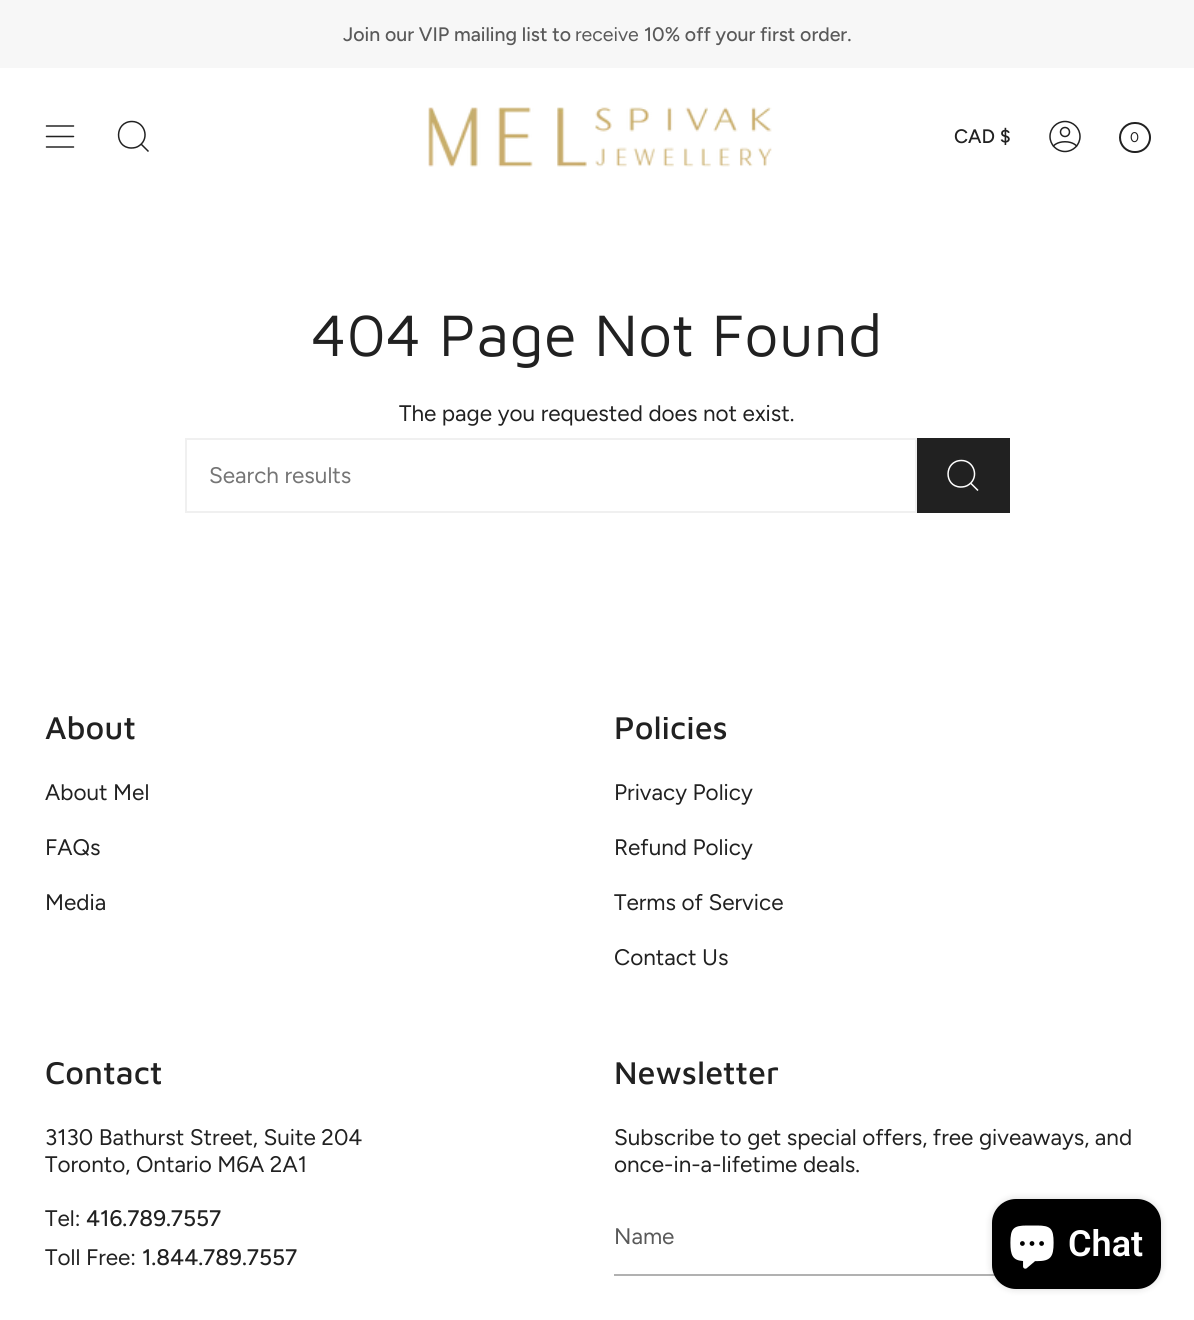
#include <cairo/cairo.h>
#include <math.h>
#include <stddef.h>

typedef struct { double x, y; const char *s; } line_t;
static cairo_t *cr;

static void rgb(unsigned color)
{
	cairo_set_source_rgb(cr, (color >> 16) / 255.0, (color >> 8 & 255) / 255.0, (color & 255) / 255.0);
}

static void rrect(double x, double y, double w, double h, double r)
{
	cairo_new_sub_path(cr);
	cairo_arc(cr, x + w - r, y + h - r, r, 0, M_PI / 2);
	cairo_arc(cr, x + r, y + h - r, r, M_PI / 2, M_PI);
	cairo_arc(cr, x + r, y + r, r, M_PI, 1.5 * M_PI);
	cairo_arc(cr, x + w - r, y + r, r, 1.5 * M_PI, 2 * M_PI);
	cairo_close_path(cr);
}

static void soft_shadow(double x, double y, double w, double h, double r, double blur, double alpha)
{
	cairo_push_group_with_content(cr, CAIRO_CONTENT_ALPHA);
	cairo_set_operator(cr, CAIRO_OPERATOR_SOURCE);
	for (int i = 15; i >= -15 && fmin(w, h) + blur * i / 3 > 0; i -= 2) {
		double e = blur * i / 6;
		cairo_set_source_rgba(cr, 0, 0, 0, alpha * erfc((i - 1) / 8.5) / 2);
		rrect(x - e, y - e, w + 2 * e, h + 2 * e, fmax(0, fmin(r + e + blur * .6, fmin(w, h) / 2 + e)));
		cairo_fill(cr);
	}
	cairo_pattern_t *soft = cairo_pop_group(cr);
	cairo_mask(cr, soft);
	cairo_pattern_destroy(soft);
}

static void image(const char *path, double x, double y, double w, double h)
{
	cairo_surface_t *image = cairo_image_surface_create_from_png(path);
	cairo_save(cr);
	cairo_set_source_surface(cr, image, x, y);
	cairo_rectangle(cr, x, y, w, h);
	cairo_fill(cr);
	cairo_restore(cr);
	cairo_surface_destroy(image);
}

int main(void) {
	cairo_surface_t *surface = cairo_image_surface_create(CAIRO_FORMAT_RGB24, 1194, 1320);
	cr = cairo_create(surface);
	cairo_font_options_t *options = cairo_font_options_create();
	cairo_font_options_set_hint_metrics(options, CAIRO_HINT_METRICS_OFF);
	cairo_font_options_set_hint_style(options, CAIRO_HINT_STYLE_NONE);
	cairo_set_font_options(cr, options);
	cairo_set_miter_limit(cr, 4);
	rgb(0xffffff);
	cairo_paint(cr);
	rgb(0xf7f7f7);
	cairo_rectangle(cr, 0, 0, 1194, 68);
	cairo_fill(cr);
	cairo_new_path(cr);
	cairo_move_to(cr, 46.5, 126);
	cairo_line_to(cr, 73.5, 126);
	cairo_move_to(cr, 46.5, 136.5);
	cairo_line_to(cr, 73.5, 136.5);
	cairo_move_to(cr, 46.5, 147);
	cairo_line_to(cr, 73.5, 147);
	rgb(0x212121);
	cairo_set_line_width(cr, 1.5);
	cairo_set_line_cap(cr, CAIRO_LINE_CAP_ROUND);
	cairo_set_line_join(cr, CAIRO_LINE_JOIN_ROUND);
	cairo_stroke(cr);
	cairo_new_path(cr);
	cairo_move_to(cr, 132, 121.5);
	cairo_curve_to(cr, 144.5, 121.5, 150, 138, 139.5, 145.5);
	cairo_curve_to(cr, 137, 147.5, 134, 148, 131, 148);
	cairo_curve_to(cr, 114, 147.5, 114.5, 121.5, 132, 121.5);
	cairo_close_path(cr);
	cairo_move_to(cr, 141, 144);
	cairo_line_to(cr, 148.5, 151.5);
	cairo_set_line_cap(cr, CAIRO_LINE_CAP_BUTT);
	cairo_set_line_join(cr, CAIRO_LINE_JOIN_MITER);
	cairo_stroke(cr);
	image("img/1.png", 428, 107, 344, 60);
	image("img/2.png", 1049, 120, 32, 33);
	rrect(1120, 123, 30, 29, 14.5);
	cairo_set_line_width(cr, 2);
	cairo_stroke(cr);
	cairo_rectangle(cr, 186, 439, 730, 73);
	rgb(0xf0f0f0);
	cairo_stroke(cr);
	rgb(0x212121);
	cairo_rectangle(cr, 917, 438, 93, 75);
	cairo_fill(cr);
	cairo_new_path(cr);
	cairo_move_to(cr, 961.5, 460.5);
	cairo_curve_to(cr, 974, 460.5, 979.5, 477, 969, 484.5);
	cairo_curve_to(cr, 966.5, 486.5, 963.5, 487, 960.5, 487);
	cairo_curve_to(cr, 943.5, 486.5, 944, 460.5, 961.5, 460.5);
	cairo_close_path(cr);
	cairo_move_to(cr, 970.5, 483);
	cairo_line_to(cr, 978, 490.5);
	rgb(0xffffff);
	cairo_set_line_width(cr, 1.5);
	cairo_stroke(cr);
	rgb(0xb1b1b1);
	cairo_rectangle(cr, 614, 1274, 381, 2);
	cairo_fill(cr);
	rgb(0x000000);
	soft_shadow(992, 1199, 169, 90, 24, 4, 0.15);
	rgb(0x000000);
	rrect(992, 1199, 169, 90, 24);
	cairo_fill(cr);
	image("img/3.png", 1010, 1225, 44, 44);
	cairo_select_font_face(cr, "Figtree Medium", CAIRO_FONT_SLANT_NORMAL, CAIRO_FONT_WEIGHT_NORMAL);
	cairo_set_font_size(cr, 19.5);
	rgb(0x595959);
	cairo_move_to(cr, 343, 41);
	cairo_show_text(cr, "Join our VIP mailing list to");
	cairo_select_font_face(cr, "Figtree", CAIRO_FONT_SLANT_NORMAL, CAIRO_FONT_WEIGHT_NORMAL);
	cairo_move_to(cr, 575, 41);
	cairo_show_text(cr, "receive");
	cairo_select_font_face(cr, "Figtree Medium", CAIRO_FONT_SLANT_NORMAL, CAIRO_FONT_WEIGHT_NORMAL);
	cairo_move_to(cr, 644, 41);
	cairo_show_text(cr, "10% off your first order.");
	rgb(0x212121);
	cairo_move_to(cr, 954, 143);
	cairo_show_text(cr, "CAD $");
	cairo_select_font_face(cr, "Figtree", CAIRO_FONT_SLANT_NORMAL, CAIRO_FONT_WEIGHT_NORMAL);
	cairo_set_font_size(cr, 14);
	cairo_move_to(cr, 1130, 142);
	cairo_show_text(cr, "0");
	cairo_select_font_face(cr, "Maven Pro", CAIRO_FONT_SLANT_NORMAL, CAIRO_FONT_WEIGHT_NORMAL);
	cairo_set_font_size(cr, 60.4);
	cairo_move_to(cr, 311, 356);
	cairo_show_text(cr, "404 Page Not Found");
	cairo_select_font_face(cr, "Figtree", CAIRO_FONT_SLANT_NORMAL, CAIRO_FONT_WEIGHT_NORMAL);
	cairo_set_font_size(cr, 22.5);
	cairo_move_to(cr, 399, 421);
	cairo_show_text(cr, "The page you requested does not exist.");
	rgb(0x757575);
	cairo_move_to(cr, 209, 483);
	cairo_show_text(cr, "Search results");
	cairo_select_font_face(cr, "Maven Pro Medium", CAIRO_FONT_SLANT_NORMAL, CAIRO_FONT_WEIGHT_NORMAL);
	cairo_set_font_size(cr, 32.5);
	rgb(0x212121);
	cairo_move_to(cr, 45, 739);
	cairo_show_text(cr, "About");
	cairo_select_font_face(cr, "Figtree", CAIRO_FONT_SLANT_NORMAL, CAIRO_FONT_WEIGHT_NORMAL);
	cairo_set_font_size(cr, 22.5);
	{
		static const line_t items[] = {
			{45, 800, "About Mel"},
			{45, 855, "FAQs"},
			{45, 910, "Media"},
		};
		for (size_t i = 0; i < sizeof items / sizeof *items; i++) {
			cairo_move_to(cr, items[i].x, items[i].y);
			cairo_show_text(cr, items[i].s);
		}
	}
	cairo_select_font_face(cr, "Maven Pro Medium", CAIRO_FONT_SLANT_NORMAL, CAIRO_FONT_WEIGHT_NORMAL);
	cairo_set_font_size(cr, 32.5);
	cairo_move_to(cr, 614, 739);
	cairo_show_text(cr, "Policies");
	cairo_select_font_face(cr, "Figtree", CAIRO_FONT_SLANT_NORMAL, CAIRO_FONT_WEIGHT_NORMAL);
	cairo_set_font_size(cr, 22.5);
	{
		static const line_t items[] = {
			{614, 800, "Privacy Policy"},
			{614, 855, "Refund Policy"},
			{614, 910, "Terms of Service"},
			{614, 965, "Contact Us"},
		};
		for (size_t i = 0; i < sizeof items / sizeof *items; i++) {
			cairo_move_to(cr, items[i].x, items[i].y);
			cairo_show_text(cr, items[i].s);
		}
	}
	cairo_select_font_face(cr, "Maven Pro Medium", CAIRO_FONT_SLANT_NORMAL, CAIRO_FONT_WEIGHT_NORMAL);
	cairo_set_font_size(cr, 32.5);
	cairo_move_to(cr, 45, 1084);
	cairo_show_text(cr, "Contact");
	cairo_select_font_face(cr, "Figtree", CAIRO_FONT_SLANT_NORMAL, CAIRO_FONT_WEIGHT_NORMAL);
	cairo_set_font_size(cr, 22.5);
	{
		static const line_t items[] = {
			{45, 1145, "3130 Bathurst Street, Suite 204"},
			{45, 1172, "Toronto, Ontario M6A 2A1"},
			{45, 1226, "Tel:"},
		};
		for (size_t i = 0; i < sizeof items / sizeof *items; i++) {
			cairo_move_to(cr, items[i].x, items[i].y);
			cairo_show_text(cr, items[i].s);
		}
	}
	cairo_select_font_face(cr, "Figtree Medium", CAIRO_FONT_SLANT_NORMAL, CAIRO_FONT_WEIGHT_NORMAL);
	cairo_move_to(cr, 86, 1226);
	cairo_show_text(cr, "416.789.7557");
	cairo_select_font_face(cr, "Figtree", CAIRO_FONT_SLANT_NORMAL, CAIRO_FONT_WEIGHT_NORMAL);
	cairo_move_to(cr, 45, 1265);
	cairo_show_text(cr, "Toll Free:");
	cairo_select_font_face(cr, "Figtree Medium", CAIRO_FONT_SLANT_NORMAL, CAIRO_FONT_WEIGHT_NORMAL);
	cairo_move_to(cr, 142, 1265);
	cairo_show_text(cr, "1.844.789.7557");
	cairo_select_font_face(cr, "Maven Pro Medium", CAIRO_FONT_SLANT_NORMAL, CAIRO_FONT_WEIGHT_NORMAL);
	cairo_set_font_size(cr, 32.5);
	cairo_move_to(cr, 614, 1084);
	cairo_show_text(cr, "Newsletter");
	cairo_select_font_face(cr, "Figtree", CAIRO_FONT_SLANT_NORMAL, CAIRO_FONT_WEIGHT_NORMAL);
	cairo_set_font_size(cr, 22.5);
	cairo_move_to(cr, 614, 1145);
	cairo_show_text(cr, "Subscribe to get special offers, free giveaways, and");
	cairo_move_to(cr, 614, 1172);
	cairo_show_text(cr, "once-in-a-lifetime deals.");
	rgb(0x595959);
	cairo_move_to(cr, 614, 1244);
	cairo_show_text(cr, "Name");
	cairo_select_font_face(cr, "Roboto SemiBold", CAIRO_FONT_SLANT_NORMAL, CAIRO_FONT_WEIGHT_NORMAL);
	cairo_set_font_size(cr, 36);
	rgb(0xffffff);
	cairo_move_to(cr, 1068, 1256);
	cairo_show_text(cr, "Chat");
	cairo_surface_write_to_png(surface, "page.png");
	cairo_font_options_destroy(options);
	cairo_destroy(cr);
	cairo_surface_destroy(surface);
	return 0;
}
